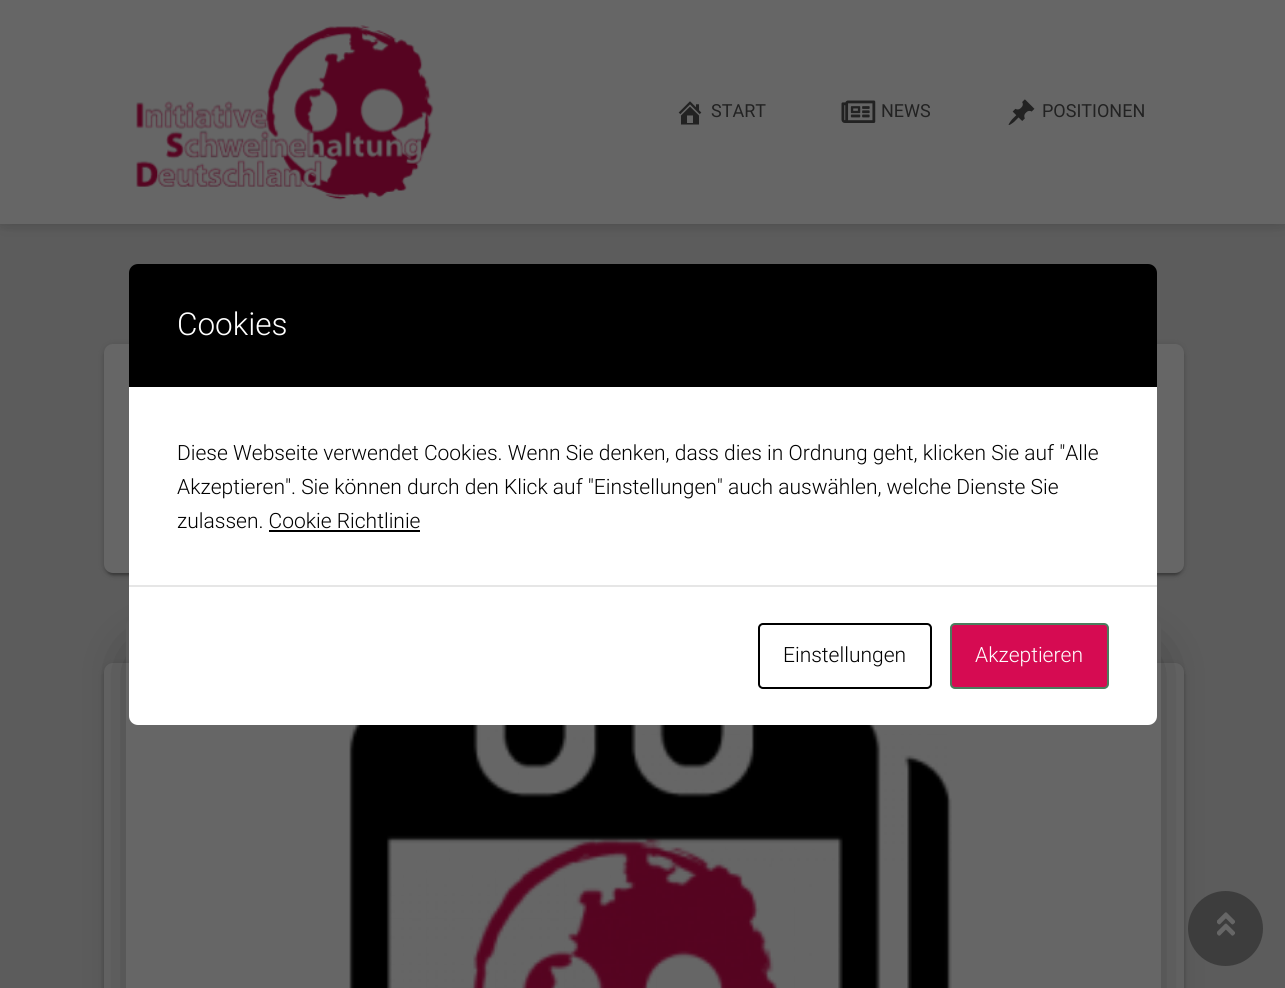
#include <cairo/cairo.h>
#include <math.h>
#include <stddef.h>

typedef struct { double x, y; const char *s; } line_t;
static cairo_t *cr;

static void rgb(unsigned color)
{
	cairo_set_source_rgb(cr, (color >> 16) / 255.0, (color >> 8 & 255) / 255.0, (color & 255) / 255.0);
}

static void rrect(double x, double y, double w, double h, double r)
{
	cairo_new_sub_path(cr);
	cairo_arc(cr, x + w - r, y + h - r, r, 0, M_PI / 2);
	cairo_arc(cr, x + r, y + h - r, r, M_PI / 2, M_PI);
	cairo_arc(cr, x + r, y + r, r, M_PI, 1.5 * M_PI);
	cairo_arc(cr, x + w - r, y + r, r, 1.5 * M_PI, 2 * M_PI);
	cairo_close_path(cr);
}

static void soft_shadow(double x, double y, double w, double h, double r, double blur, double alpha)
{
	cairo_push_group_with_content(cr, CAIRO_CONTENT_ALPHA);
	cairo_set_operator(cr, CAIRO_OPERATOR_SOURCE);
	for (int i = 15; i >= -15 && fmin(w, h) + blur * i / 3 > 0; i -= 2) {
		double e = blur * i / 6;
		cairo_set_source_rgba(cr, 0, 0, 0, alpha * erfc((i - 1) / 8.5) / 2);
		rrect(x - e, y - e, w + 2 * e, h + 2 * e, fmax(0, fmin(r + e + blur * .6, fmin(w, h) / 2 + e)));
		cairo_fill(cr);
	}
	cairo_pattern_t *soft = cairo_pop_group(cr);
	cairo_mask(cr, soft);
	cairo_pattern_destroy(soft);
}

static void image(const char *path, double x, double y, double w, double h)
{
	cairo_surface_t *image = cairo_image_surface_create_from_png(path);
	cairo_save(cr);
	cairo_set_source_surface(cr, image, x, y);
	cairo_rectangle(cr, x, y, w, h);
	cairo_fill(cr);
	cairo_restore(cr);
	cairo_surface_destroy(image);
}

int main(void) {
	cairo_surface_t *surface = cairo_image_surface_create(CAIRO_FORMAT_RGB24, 1285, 988);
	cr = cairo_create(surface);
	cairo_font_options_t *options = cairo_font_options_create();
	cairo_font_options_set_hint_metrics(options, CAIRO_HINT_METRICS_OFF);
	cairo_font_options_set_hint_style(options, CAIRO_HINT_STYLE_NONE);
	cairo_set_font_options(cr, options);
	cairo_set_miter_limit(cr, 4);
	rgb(0x5c5c5c);
	cairo_paint(cr);
	rgb(0x000000);
	soft_shadow(0, 2, 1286, 223, 0, 7.5, 0.12);
	soft_shadow(9, 11, 1268, 205, 0, 7.5, 0.42);
	rgb(0x666666);
	cairo_rectangle(cr, 0, 0, 1285, 224);
	cairo_fill(cr);
	image("img/1.png", 136, 25, 298, 175);
	image("img/2.png", 678, 101, 24, 24);
	image("img/3.png", 841, 100, 35, 23);
	image("img/4.png", 1008, 99, 27, 26);
	rgb(0x000000);
	soft_shadow(104, 345, 1080, 230, 9, 4, 0.12);
	soft_shadow(107, 351, 1074, 224, 6, 1, 0.2);
	soft_shadow(104, 347, 1080, 229, 9, 1.5, 0.14);
	rgb(0x666666);
	rrect(104, 344, 1080, 229, 9);
	cairo_fill(cr);
	rgb(0x000000);
	soft_shadow(104, 665, 1080, 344, 9, 4, 0.12);
	soft_shadow(104, 666, 1080, 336, 9, 1.5, 0.14);
	rgb(0x666666);
	rrect(104, 663, 1080, 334, 9);
	cairo_fill(cr);
	cairo_save(cr);
	cairo_set_fill_rule(cr, CAIRO_FILL_RULE_EVEN_ODD);
	cairo_new_path(cr);
	cairo_move_to(cr, 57, 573);
	cairo_line_to(cr, 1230, 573);
	cairo_line_to(cr, 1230, 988);
	cairo_line_to(cr, 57, 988);
	cairo_close_path(cr);
	cairo_move_to(cr, 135, 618);
	cairo_line_to(cr, 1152, 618);
	cairo_curve_to(cr, 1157, 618, 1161, 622, 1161, 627);
	cairo_line_to(cr, 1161, 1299);
	cairo_curve_to(cr, 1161, 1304, 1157, 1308, 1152, 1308);
	cairo_line_to(cr, 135, 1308);
	cairo_curve_to(cr, 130, 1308, 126, 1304, 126, 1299);
	cairo_line_to(cr, 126, 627);
	cairo_curve_to(cr, 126, 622, 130, 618, 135, 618);
	cairo_close_path(cr);
	cairo_clip(cr);
	rgb(0x000000);
	soft_shadow(144, 660, 999, 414, 0, 28.5, 0.56);
	cairo_restore(cr);
	image("img/5.png", 349, 725, 603, 263);
	rgb(0x000000);
	cairo_new_path(cr);
	cairo_move_to(cr, 138, 264);
	cairo_line_to(cr, 1148, 264);
	cairo_curve_to(cr, 1153, 264, 1157, 268, 1157, 273);
	cairo_line_to(cr, 1157, 387);
	cairo_line_to(cr, 129, 387);
	cairo_line_to(cr, 129, 273);
	cairo_curve_to(cr, 129, 268, 133, 264, 138, 264);
	cairo_close_path(cr);
	cairo_fill(cr);
	rgb(0xffffff);
	cairo_rectangle(cr, 129, 387, 1028, 198);
	cairo_fill(cr);
	rgb(0x000000);
	cairo_rectangle(cr, 269, 530, 151, 2);
	cairo_fill(cr);
	rgb(0xffffff);
	cairo_new_path(cr);
	cairo_move_to(cr, 129, 585);
	cairo_line_to(cr, 1157, 585);
	cairo_line_to(cr, 1157, 716);
	cairo_curve_to(cr, 1157, 721, 1153, 725, 1148, 725);
	cairo_line_to(cr, 138, 725);
	cairo_curve_to(cr, 133, 725, 129, 721, 129, 716);
	cairo_close_path(cr);
	cairo_fill(cr);
	rgb(0xe6e6e6);
	cairo_rectangle(cr, 129, 585, 1028, 2);
	cairo_fill(cr);
	rrect(759, 624, 172, 64, 4);
	rgb(0x000000);
	cairo_stroke(cr);
	rgb(0xd60b52);
	rrect(951, 624, 157, 64, 4);
	cairo_fill_preserve(cr);
	rgb(0x4b7d5e);
	cairo_stroke(cr);
	rgb(0x3d3d3d);
	cairo_arc(cr, 1225.5, 928.5, 37.5, 0, 2 * M_PI);
	cairo_fill(cr);
	image("img/6.png", 1217, 912, 18, 24);
	cairo_select_font_face(cr, "Roboto", CAIRO_FONT_SLANT_NORMAL, CAIRO_FONT_WEIGHT_NORMAL);
	cairo_set_font_size(cr, 18);
	rgb(0x222222);
	{
		static const line_t items[] = {
			{711, 117, "START"},
			{881, 117, "NEWS"},
			{1042, 117, "POSITIONEN"},
		};
		for (size_t i = 0; i < sizeof items / sizeof *items; i++) {
			cairo_move_to(cr, items[i].x, items[i].y);
			cairo_show_text(cr, items[i].s);
		}
	}
	cairo_select_font_face(cr, "Roboto Light", CAIRO_FONT_SLANT_NORMAL, CAIRO_FONT_WEIGHT_NORMAL);
	cairo_set_font_size(cr, 31.5);
	rgb(0xffffff);
	cairo_move_to(cr, 177, 335);
	cairo_show_text(cr, "Cookies");
	cairo_set_font_size(cr, 21);
	rgb(0x000000);
	{
		static const line_t items[] = {
			{177, 460, "Diese Webseite verwendet Cookies. Wenn Sie denken, dass dies in Ordnung geht, klicken Sie auf \"Alle"},
			{177, 494, "Akzeptieren\". Sie können durch den Klick auf \"Einstellungen\" auch auswählen, welche Dienste Sie"},
			{177, 528, "zulassen. Cookie Richtlinie"},
			{783, 662, "Einstellungen"},
		};
		for (size_t i = 0; i < sizeof items / sizeof *items; i++) {
			cairo_move_to(cr, items[i].x, items[i].y);
			cairo_show_text(cr, items[i].s);
		}
	}
	rgb(0xffffff);
	cairo_move_to(cr, 975, 662);
	cairo_show_text(cr, "Akzeptieren");
	cairo_surface_write_to_png(surface, "page.png");
	cairo_font_options_destroy(options);
	cairo_destroy(cr);
	cairo_surface_destroy(surface);
	return 0;
}
